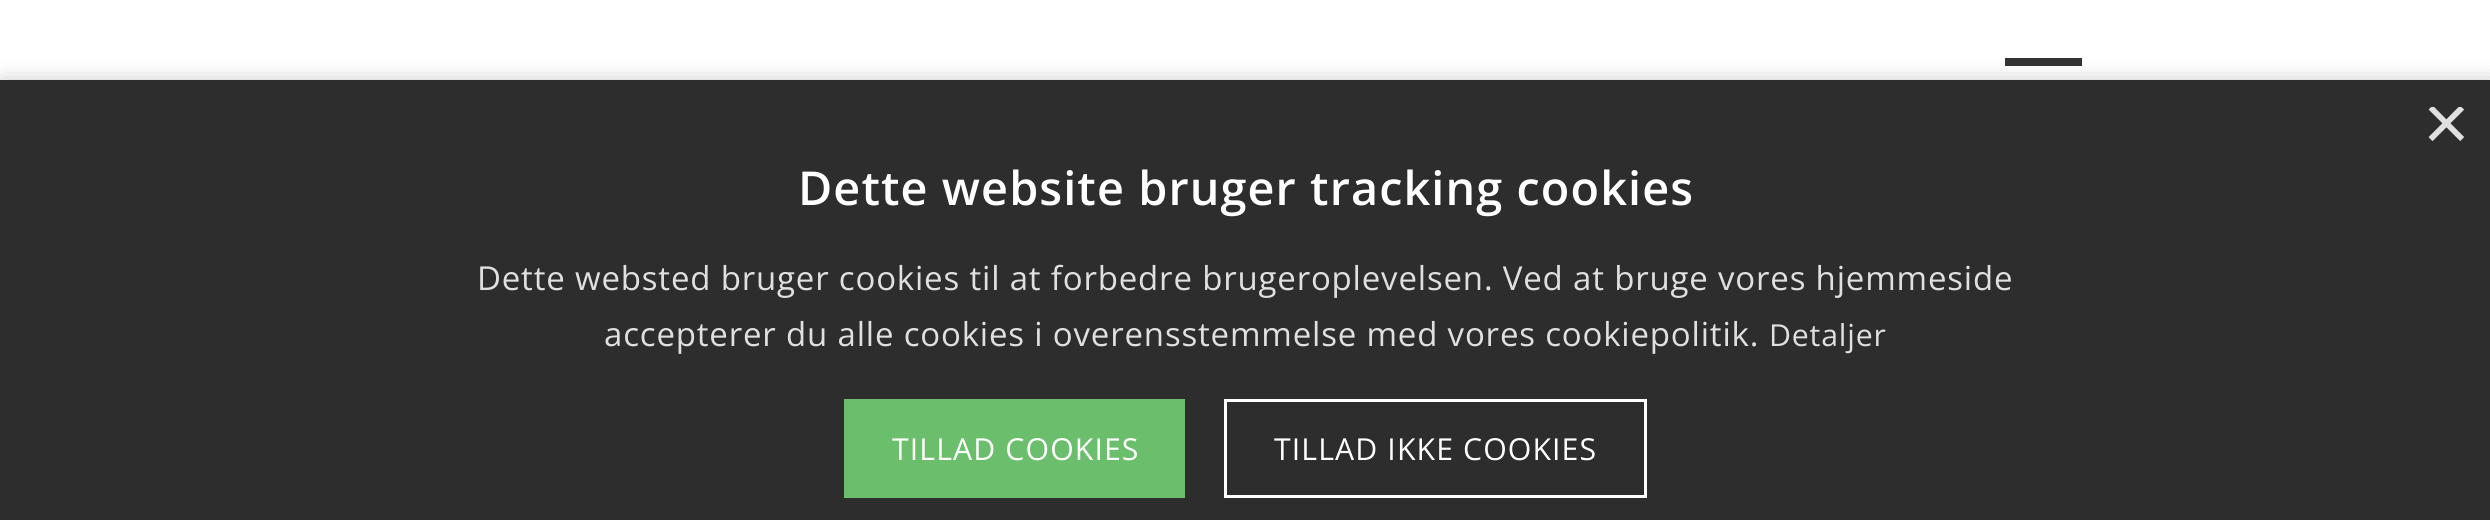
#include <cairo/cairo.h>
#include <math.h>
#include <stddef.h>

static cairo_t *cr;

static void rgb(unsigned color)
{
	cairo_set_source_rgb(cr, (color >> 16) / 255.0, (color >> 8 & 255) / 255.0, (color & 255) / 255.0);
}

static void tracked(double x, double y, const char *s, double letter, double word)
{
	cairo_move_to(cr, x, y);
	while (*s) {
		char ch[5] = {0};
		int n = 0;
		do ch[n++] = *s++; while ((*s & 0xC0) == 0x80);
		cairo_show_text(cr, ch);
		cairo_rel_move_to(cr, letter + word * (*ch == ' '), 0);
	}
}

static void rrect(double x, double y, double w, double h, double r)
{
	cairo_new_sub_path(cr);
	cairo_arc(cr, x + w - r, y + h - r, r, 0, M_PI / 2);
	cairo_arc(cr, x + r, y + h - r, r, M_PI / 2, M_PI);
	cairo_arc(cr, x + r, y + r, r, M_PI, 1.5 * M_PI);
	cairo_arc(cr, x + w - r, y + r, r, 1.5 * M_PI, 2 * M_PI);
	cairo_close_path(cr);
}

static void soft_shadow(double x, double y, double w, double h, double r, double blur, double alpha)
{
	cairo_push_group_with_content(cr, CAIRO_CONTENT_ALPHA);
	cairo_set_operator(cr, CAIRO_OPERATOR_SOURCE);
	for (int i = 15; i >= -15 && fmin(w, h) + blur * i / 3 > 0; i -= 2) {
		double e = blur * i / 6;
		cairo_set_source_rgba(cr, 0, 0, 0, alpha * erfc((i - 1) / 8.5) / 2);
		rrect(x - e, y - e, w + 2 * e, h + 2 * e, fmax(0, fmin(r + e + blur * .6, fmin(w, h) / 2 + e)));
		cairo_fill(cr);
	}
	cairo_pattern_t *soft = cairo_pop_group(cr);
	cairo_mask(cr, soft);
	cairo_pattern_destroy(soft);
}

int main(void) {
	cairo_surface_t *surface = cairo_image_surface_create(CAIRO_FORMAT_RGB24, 2490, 520);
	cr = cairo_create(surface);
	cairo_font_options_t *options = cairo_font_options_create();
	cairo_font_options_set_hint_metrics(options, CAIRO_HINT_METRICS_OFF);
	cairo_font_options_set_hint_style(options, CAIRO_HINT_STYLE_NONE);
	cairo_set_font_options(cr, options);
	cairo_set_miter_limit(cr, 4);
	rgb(0xffffff);
	cairo_paint(cr);
	rgb(0x333333);
	cairo_rectangle(cr, 2005, 58, 77, 8);
	cairo_fill(cr);
	rgb(0x000000);
	soft_shadow(3, 85, 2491, 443, 0, 11, 0.35);
	rgb(0x2d2d2d);
	cairo_rectangle(cr, 0, 80, 2490, 440);
	cairo_fill(cr);
	rgb(0x6bbe6b);
	cairo_rectangle(cr, 844, 399, 341, 99);
	cairo_fill(cr);
	cairo_rectangle(cr, 1225.5, 400.5, 420, 96);
	rgb(0xffffff);
	cairo_set_line_width(cr, 3);
	cairo_stroke(cr);
	cairo_save(cr);
	cairo_rectangle(cr, 2423, 107, 41, 42);
	cairo_clip(cr);
	cairo_select_font_face(cr, "Liberation Sans", CAIRO_FONT_SLANT_NORMAL, CAIRO_FONT_WEIGHT_NORMAL);
	cairo_set_font_size(cr, 80);
	rgb(0xe0e0e0);
	cairo_move_to(cr, 2423, 150);
	cairo_show_text(cr, "×");
	cairo_restore(cr);
	cairo_select_font_face(cr, "Open Sans SemiBold", CAIRO_FONT_SLANT_NORMAL, CAIRO_FONT_WEIGHT_NORMAL);
	cairo_set_font_size(cr, 46.75);
	tracked(798, 205, "Dette website bruger tracking cookies", 1.1, 0);
	cairo_select_font_face(cr, "Open Sans", CAIRO_FONT_SLANT_NORMAL, CAIRO_FONT_WEIGHT_NORMAL);
	cairo_set_font_size(cr, 33);
	rgb(0xe0e0e0);
	tracked(477, 290, "Dette websted bruger cookies til at forbedre brugeroplevelsen. Ved at bruge vores hjemmeside", 0.82, 0);
	tracked(604, 346, "accepterer du alle cookies i overensstemmelse med vores cookiepolitik.", 0.82, 0);
	cairo_set_font_size(cr, 30.25);
	tracked(1769, 346, "Detaljer", 0.82, 0);
	rgb(0xffffff);
	tracked(892, 460, "TILLAD COOKIES", 1.1, 0);
	tracked(1274, 460, "TILLAD IKKE COOKIES", 1.1, 0);
	cairo_surface_write_to_png(surface, "page.png");
	cairo_font_options_destroy(options);
	cairo_destroy(cr);
	cairo_surface_destroy(surface);
	return 0;
}
